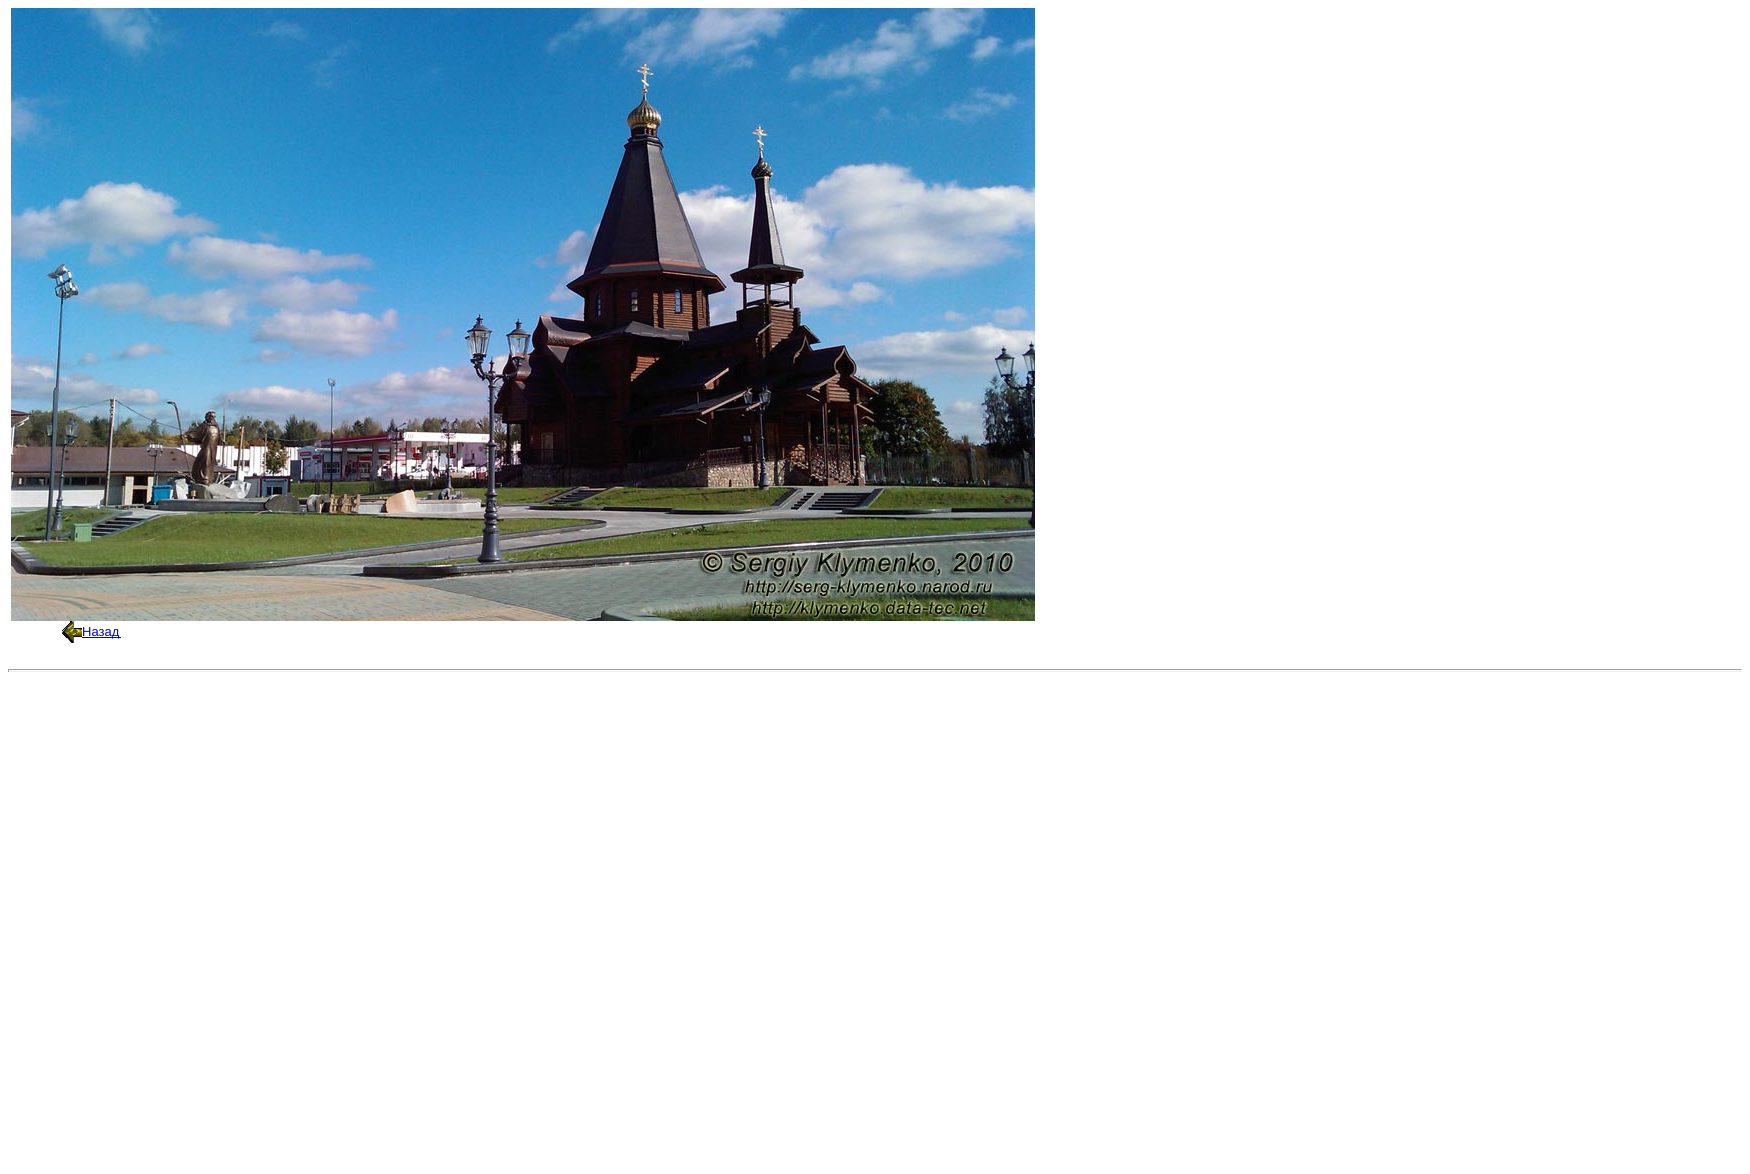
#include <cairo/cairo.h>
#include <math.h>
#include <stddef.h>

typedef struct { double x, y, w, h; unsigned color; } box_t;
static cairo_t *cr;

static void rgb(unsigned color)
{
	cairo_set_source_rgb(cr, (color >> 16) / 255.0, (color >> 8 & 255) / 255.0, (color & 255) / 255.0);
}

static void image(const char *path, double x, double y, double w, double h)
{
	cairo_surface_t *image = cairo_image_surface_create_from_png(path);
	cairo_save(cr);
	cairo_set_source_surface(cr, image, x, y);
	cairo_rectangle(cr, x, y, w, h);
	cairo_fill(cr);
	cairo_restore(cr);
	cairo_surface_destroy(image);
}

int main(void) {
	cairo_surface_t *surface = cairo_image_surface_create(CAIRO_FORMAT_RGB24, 1750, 1174);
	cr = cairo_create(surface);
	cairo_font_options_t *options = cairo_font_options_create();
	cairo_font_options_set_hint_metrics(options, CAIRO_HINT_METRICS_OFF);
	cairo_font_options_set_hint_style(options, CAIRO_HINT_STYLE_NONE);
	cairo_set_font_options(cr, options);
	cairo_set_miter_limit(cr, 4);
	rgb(0xffffff);
	cairo_paint(cr);
	image("img/1.png", 11, 8, 1024, 613);
	image("img/2.png", 62, 621, 20, 22);
	{
		static const box_t items[] = {
			{82, 637, 39, 1, 0x0000ee},
			{8, 669, 1734, 1, 0x9f9f9f},
			{1741, 669, 1, 3, 0xeeeeee},
			{8, 671, 1734, 1, 0xeeeeee},
			{8, 669, 1, 3, 0x9f9f9f},
		};
		for (size_t i = 0; i < sizeof items / sizeof *items; i++) {
			rgb(items[i].color);
			cairo_rectangle(cr, items[i].x, items[i].y, items[i].w, items[i].h);
			cairo_fill(cr);
		}
	}
	cairo_select_font_face(cr, "Liberation Sans", CAIRO_FONT_SLANT_NORMAL, CAIRO_FONT_WEIGHT_NORMAL);
	cairo_set_font_size(cr, 13);
	rgb(0x0000ee);
	cairo_move_to(cr, 82, 636);
	cairo_show_text(cr, "Назад");
	cairo_surface_write_to_png(surface, "page.png");
	cairo_font_options_destroy(options);
	cairo_destroy(cr);
	cairo_surface_destroy(surface);
	return 0;
}
